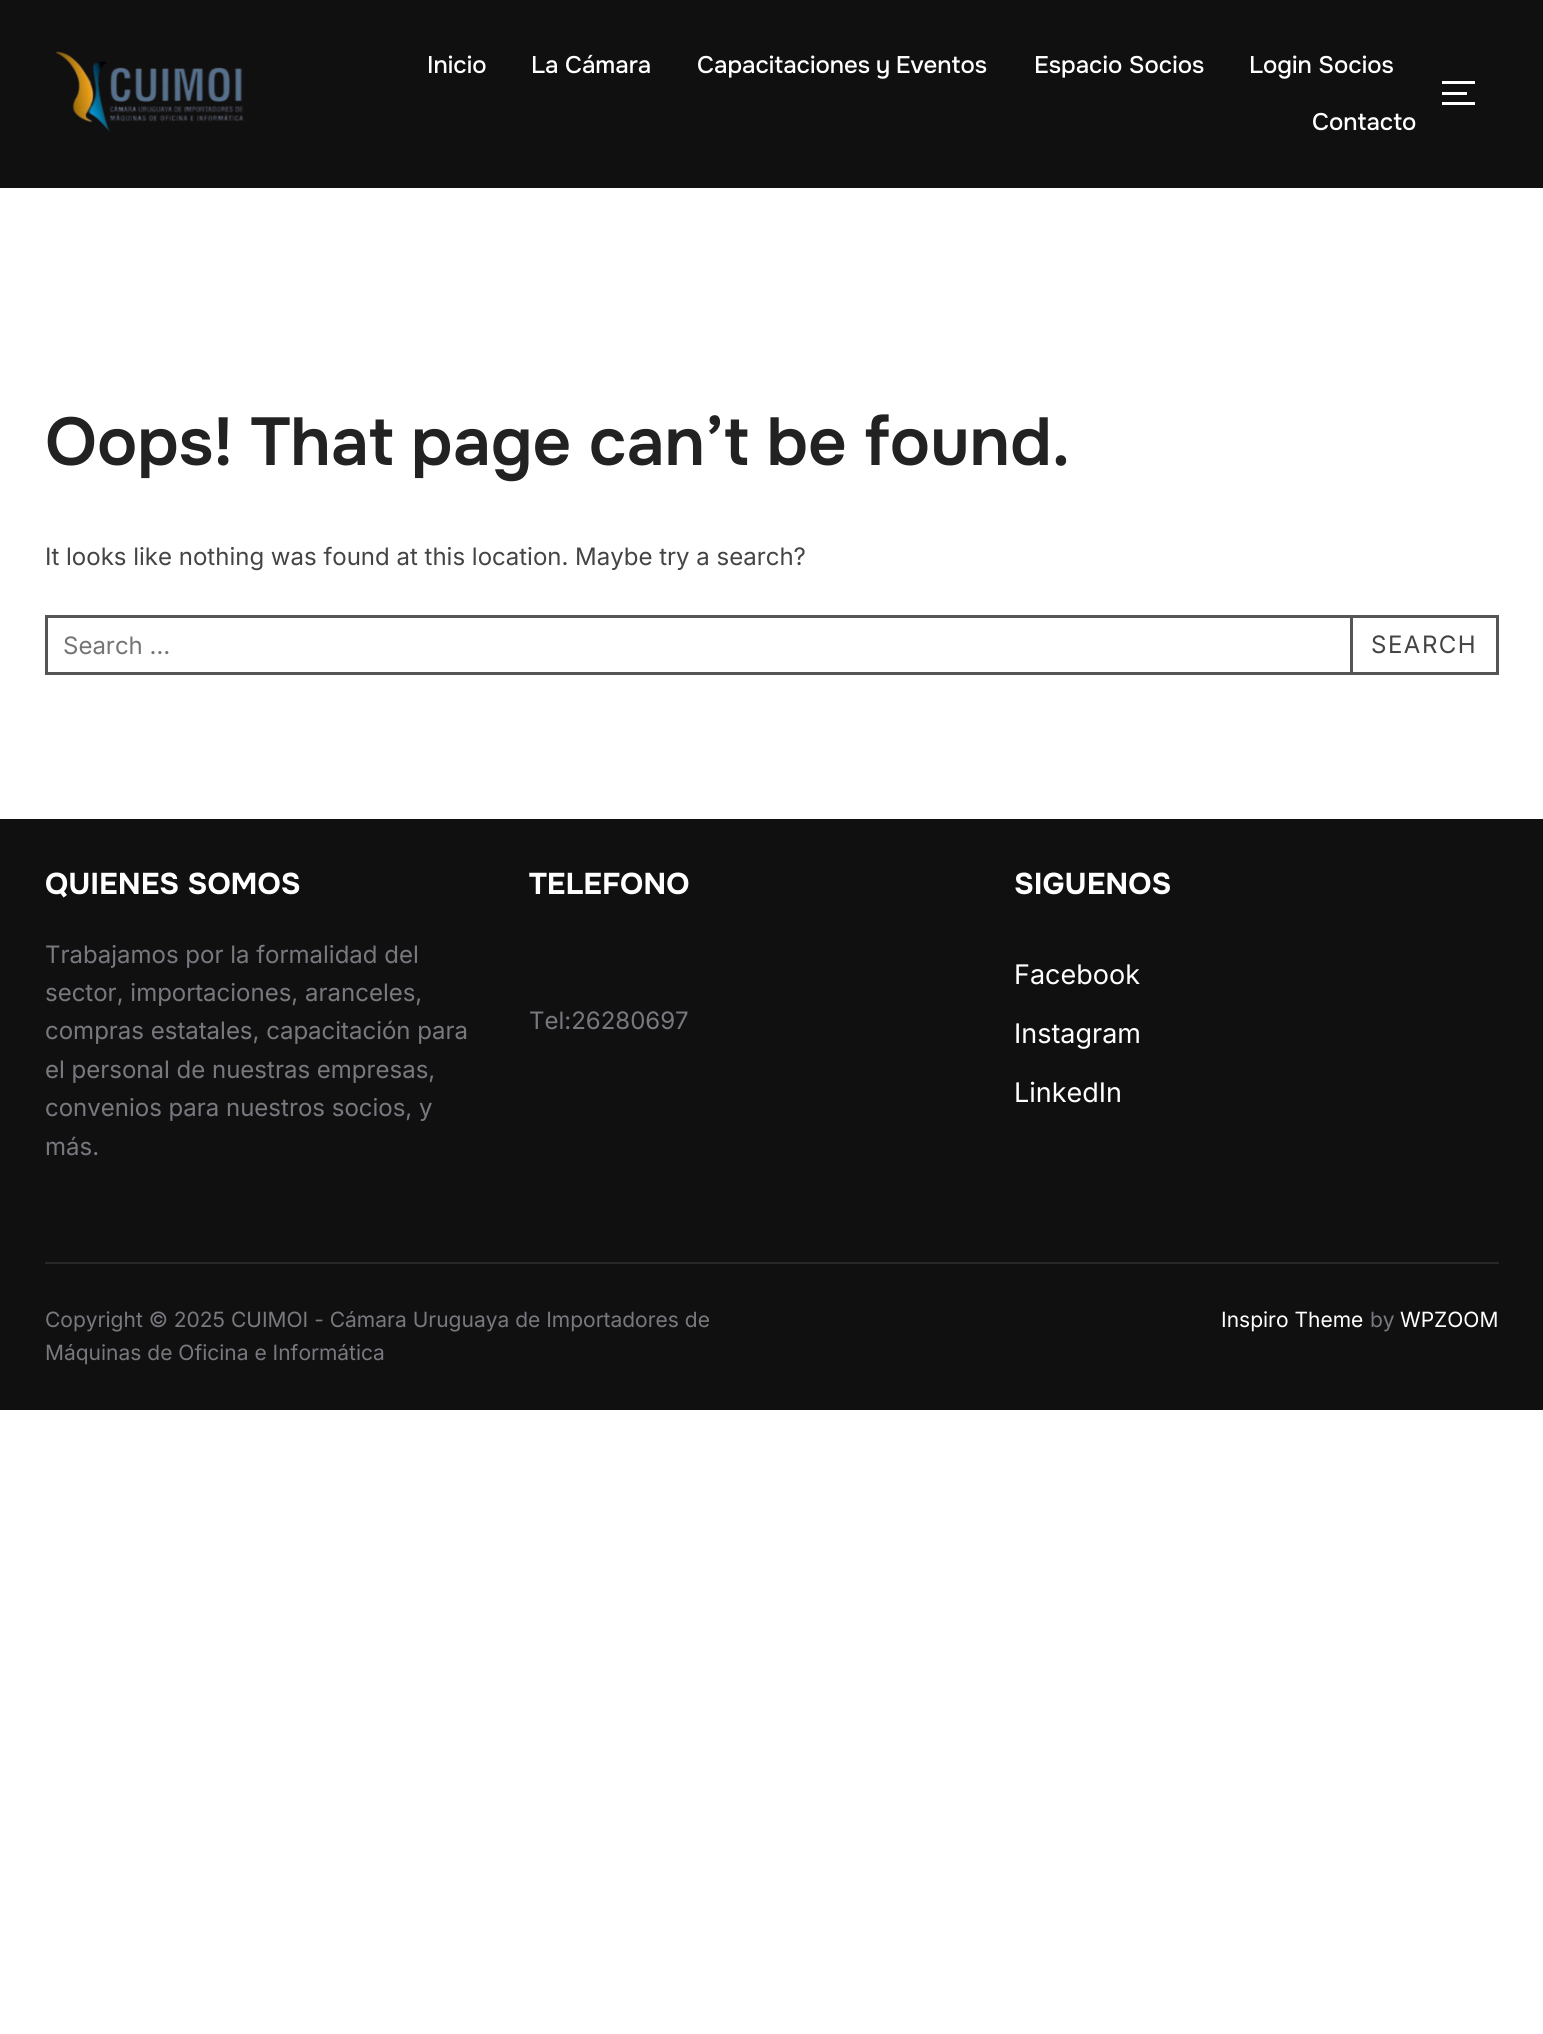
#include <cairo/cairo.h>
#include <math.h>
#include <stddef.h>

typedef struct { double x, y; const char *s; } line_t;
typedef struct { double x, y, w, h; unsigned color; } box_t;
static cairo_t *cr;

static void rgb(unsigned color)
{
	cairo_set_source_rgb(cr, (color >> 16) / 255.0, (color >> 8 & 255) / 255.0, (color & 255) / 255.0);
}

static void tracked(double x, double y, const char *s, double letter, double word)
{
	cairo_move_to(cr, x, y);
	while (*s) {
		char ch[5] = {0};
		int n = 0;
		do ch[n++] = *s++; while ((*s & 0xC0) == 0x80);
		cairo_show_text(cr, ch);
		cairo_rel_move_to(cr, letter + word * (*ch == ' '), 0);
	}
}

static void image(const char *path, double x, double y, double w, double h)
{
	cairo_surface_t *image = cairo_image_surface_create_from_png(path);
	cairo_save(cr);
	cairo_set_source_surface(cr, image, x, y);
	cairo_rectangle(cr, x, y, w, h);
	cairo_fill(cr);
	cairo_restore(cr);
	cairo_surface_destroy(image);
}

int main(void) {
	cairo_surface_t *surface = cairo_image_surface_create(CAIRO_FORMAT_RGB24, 1543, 2034);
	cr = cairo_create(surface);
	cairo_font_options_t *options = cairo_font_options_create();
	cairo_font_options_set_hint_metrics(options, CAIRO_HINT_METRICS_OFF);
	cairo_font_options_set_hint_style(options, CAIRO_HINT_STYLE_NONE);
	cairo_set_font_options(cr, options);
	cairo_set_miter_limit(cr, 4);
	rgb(0xffffff);
	cairo_paint(cr);
	rgb(0x101010);
	cairo_rectangle(cr, 0, 0, 1543, 188);
	cairo_fill(cr);
	image("img/1.png", 55, 51, 189, 80);
	{
		static const box_t items[] = {
			{1442, 81, 33, 3, 0xffffff},
			{1442, 92, 25, 3, 0xffffff},
			{1442, 102, 33, 3, 0xffffff},
		};
		for (size_t i = 0; i < sizeof items / sizeof *items; i++) {
			rgb(items[i].color);
			cairo_rectangle(cr, items[i].x, items[i].y, items[i].w, items[i].h);
			cairo_fill(cr);
		}
	}
	cairo_rectangle(cr, 46.5, 616.5, 1451, 57);
	rgb(0x565555);
	cairo_set_line_width(cr, 3);
	cairo_stroke(cr);
	cairo_rectangle(cr, 1351.5, 616.5, 146, 57);
	cairo_stroke(cr);
	rgb(0x101010);
	cairo_rectangle(cr, 0, 819, 1543, 591);
	cairo_fill(cr);
	rgb(0x282828);
	cairo_rectangle(cr, 45, 1262, 1454, 2);
	cairo_fill(cr);
	cairo_select_font_face(cr, "Onest Medium", CAIRO_FONT_SLANT_NORMAL, CAIRO_FONT_WEIGHT_NORMAL);
	cairo_set_font_size(cr, 24);
	rgb(0xffffff);
	cairo_move_to(cr, 427, 73);
	cairo_show_text(cr, "Inicio");
	cairo_move_to(cr, 531, 73);
	cairo_show_text(cr, "La Cámara");
	tracked(697, 73, "Capacitaciones y Eventos", 0, -1);
	{
		static const line_t items[] = {
			{1034, 73, "Espacio Socios"},
			{1249, 73, "Login Socios"},
			{1312, 130, "Contacto"},
		};
		for (size_t i = 0; i < sizeof items / sizeof *items; i++) {
			cairo_move_to(cr, items[i].x, items[i].y);
			cairo_show_text(cr, items[i].s);
		}
	}
	cairo_select_font_face(cr, "Onest SemiBold", CAIRO_FONT_SLANT_NORMAL, CAIRO_FONT_WEIGHT_NORMAL);
	cairo_set_font_size(cr, 67.5);
	rgb(0x222222);
	tracked(45, 465, "Oops! That page can’t be found.", 0, -1.25);
	cairo_select_font_face(cr, "Inter", CAIRO_FONT_SLANT_NORMAL, CAIRO_FONT_WEIGHT_NORMAL);
	cairo_set_font_size(cr, 24);
	rgb(0x444444);
	cairo_move_to(cr, 45, 565);
	cairo_show_text(cr, "It looks like nothing was found at this location. Maybe try a search?");
	rgb(0x757575);
	cairo_move_to(cr, 63, 654);
	cairo_show_text(cr, "Search …");
	rgb(0x444444);
	tracked(1371, 653, "SEARCH", 1.5, 0);
	cairo_select_font_face(cr, "Onest", CAIRO_FONT_SLANT_NORMAL, CAIRO_FONT_WEIGHT_BOLD);
	cairo_set_font_size(cr, 30);
	rgb(0xffffff);
	cairo_move_to(cr, 45, 894);
	cairo_show_text(cr, "QUIENES SOMOS");
	cairo_select_font_face(cr, "Inter", CAIRO_FONT_SLANT_NORMAL, CAIRO_FONT_WEIGHT_NORMAL);
	cairo_set_font_size(cr, 24);
	rgb(0x78787f);
	{
		static const line_t items[] = {
			{45, 963, "Trabajamos por la formalidad del"},
			{45, 1001, "sector, importaciones, aranceles,"},
			{45, 1039, "compras estatales, capacitación para"},
			{45, 1078, "el personal de nuestras empresas,"},
			{45, 1116, "convenios para nuestros socios, y"},
			{45, 1155, "más."},
		};
		for (size_t i = 0; i < sizeof items / sizeof *items; i++) {
			cairo_move_to(cr, items[i].x, items[i].y);
			cairo_show_text(cr, items[i].s);
		}
	}
	cairo_select_font_face(cr, "Onest", CAIRO_FONT_SLANT_NORMAL, CAIRO_FONT_WEIGHT_BOLD);
	cairo_set_font_size(cr, 30);
	rgb(0xffffff);
	cairo_move_to(cr, 529, 894);
	cairo_show_text(cr, "TELEFONO");
	cairo_select_font_face(cr, "Inter", CAIRO_FONT_SLANT_NORMAL, CAIRO_FONT_WEIGHT_NORMAL);
	cairo_set_font_size(cr, 24);
	rgb(0x78787f);
	cairo_move_to(cr, 529, 1029);
	cairo_show_text(cr, "Tel:26280697");
	cairo_select_font_face(cr, "Onest", CAIRO_FONT_SLANT_NORMAL, CAIRO_FONT_WEIGHT_BOLD);
	cairo_set_font_size(cr, 30);
	rgb(0xffffff);
	cairo_move_to(cr, 1014, 894);
	cairo_show_text(cr, "SIGUENOS");
	cairo_select_font_face(cr, "Inter", CAIRO_FONT_SLANT_NORMAL, CAIRO_FONT_WEIGHT_NORMAL);
	cairo_set_font_size(cr, 27);
	{
		static const line_t items[] = {
			{1014, 984, "Facebook"},
			{1014, 1043, "Instagram"},
			{1014, 1102, "LinkedIn"},
		};
		for (size_t i = 0; i < sizeof items / sizeof *items; i++) {
			cairo_move_to(cr, items[i].x, items[i].y);
			cairo_show_text(cr, items[i].s);
		}
	}
	cairo_set_font_size(cr, 21);
	rgb(0x78787f);
	cairo_move_to(cr, 45, 1327);
	cairo_show_text(cr, "Copyright © 2025 CUIMOI - Cámara Uruguaya de Importadores de");
	cairo_move_to(cr, 45, 1360);
	cairo_show_text(cr, "Máquinas de Oficina e Informática");
	rgb(0xffffff);
	cairo_move_to(cr, 1221, 1327);
	cairo_show_text(cr, "Inspiro Theme");
	rgb(0x78787f);
	cairo_move_to(cr, 1370, 1327);
	cairo_show_text(cr, "by");
	rgb(0xffffff);
	cairo_move_to(cr, 1400, 1327);
	cairo_show_text(cr, "WPZOOM");
	cairo_surface_write_to_png(surface, "page.png");
	cairo_font_options_destroy(options);
	cairo_destroy(cr);
	cairo_surface_destroy(surface);
	return 0;
}
